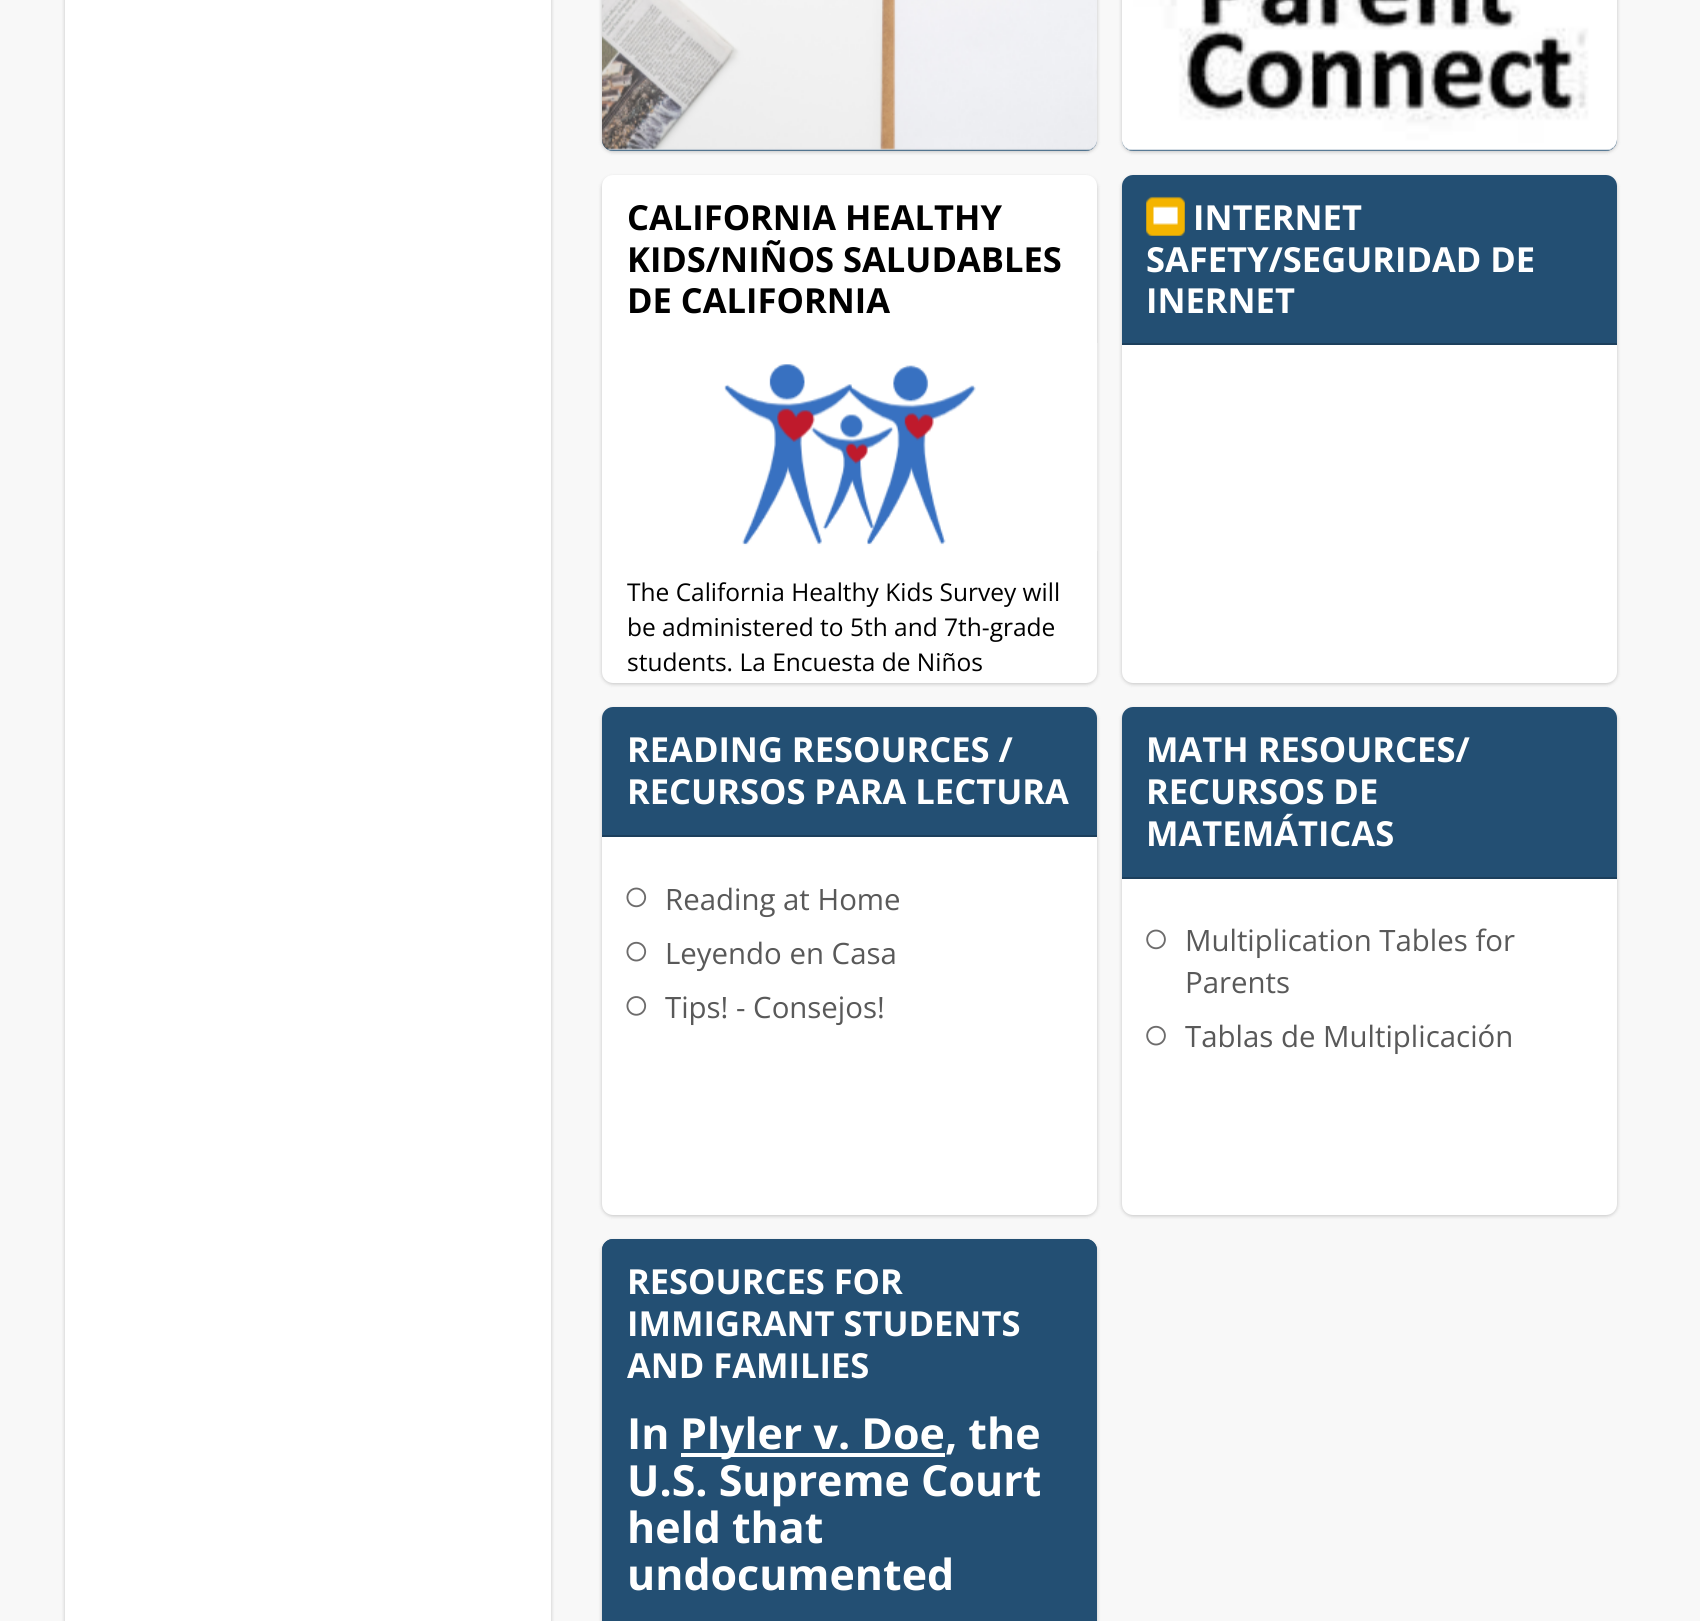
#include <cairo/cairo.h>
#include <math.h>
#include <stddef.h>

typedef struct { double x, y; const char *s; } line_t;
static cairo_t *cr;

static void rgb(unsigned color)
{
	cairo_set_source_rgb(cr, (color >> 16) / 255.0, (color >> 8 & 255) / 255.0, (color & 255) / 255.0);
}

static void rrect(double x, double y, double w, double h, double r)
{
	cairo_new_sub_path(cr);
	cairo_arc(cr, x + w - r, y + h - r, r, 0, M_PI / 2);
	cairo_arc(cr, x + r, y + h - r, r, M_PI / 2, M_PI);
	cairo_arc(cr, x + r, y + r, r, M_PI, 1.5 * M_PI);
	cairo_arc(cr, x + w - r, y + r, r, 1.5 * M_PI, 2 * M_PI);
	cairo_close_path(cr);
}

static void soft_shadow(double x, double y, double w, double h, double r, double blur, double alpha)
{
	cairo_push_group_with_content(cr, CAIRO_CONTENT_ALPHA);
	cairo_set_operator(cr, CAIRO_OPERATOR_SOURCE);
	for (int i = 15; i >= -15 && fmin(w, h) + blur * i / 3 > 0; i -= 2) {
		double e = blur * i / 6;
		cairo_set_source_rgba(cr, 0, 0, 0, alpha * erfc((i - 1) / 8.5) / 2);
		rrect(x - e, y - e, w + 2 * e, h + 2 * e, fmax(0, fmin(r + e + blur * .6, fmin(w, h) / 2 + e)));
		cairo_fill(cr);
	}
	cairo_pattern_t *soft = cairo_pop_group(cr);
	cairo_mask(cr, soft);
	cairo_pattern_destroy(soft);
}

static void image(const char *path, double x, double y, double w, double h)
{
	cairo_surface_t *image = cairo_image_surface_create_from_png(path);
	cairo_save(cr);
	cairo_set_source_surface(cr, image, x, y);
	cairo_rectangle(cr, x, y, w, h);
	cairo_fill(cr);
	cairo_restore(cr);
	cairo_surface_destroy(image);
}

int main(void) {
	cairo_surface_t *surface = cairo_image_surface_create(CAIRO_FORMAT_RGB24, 1700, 1621);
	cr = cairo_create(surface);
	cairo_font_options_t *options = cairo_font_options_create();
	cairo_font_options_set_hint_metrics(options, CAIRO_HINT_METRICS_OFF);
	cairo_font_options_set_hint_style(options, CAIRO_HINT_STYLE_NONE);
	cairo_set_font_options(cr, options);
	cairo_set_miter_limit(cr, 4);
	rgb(0xf8f8f8);
	cairo_paint(cr);
	rgb(0x000000);
	soft_shadow(65, -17, 486, 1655, 11, 2, 0.22);
	rgb(0xffffff);
	cairo_rectangle(cr, 65, 0, 486, 1621);
	cairo_fill(cr);
	rgb(0x000000);
	soft_shadow(602, -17, 495, 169, 11, 2, 0.22);
	rgb(0x234f73);
	rrect(602, -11, 495, 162, 11);
	cairo_fill(cr);
	image("img/1.png", 602, 0, 495, 151);
	rgb(0x000000);
	soft_shadow(1122, -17, 495, 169, 11, 2, 0.22);
	rgb(0x234f73);
	rrect(1122, -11, 495, 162, 11);
	cairo_fill(cr);
	image("img/2.png", 1122, 0, 495, 151);
	rgb(0x000000);
	soft_shadow(602, 177, 495, 507, 11, 2, 0.22);
	rgb(0xffffff);
	rrect(602, 175, 495, 508, 11);
	cairo_fill(cr);
	image("img/3.png", 724, 343, 374, 208);
	rgb(0x000000);
	soft_shadow(1122, 177, 495, 507, 11, 2, 0.22);
	rgb(0xffffff);
	rrect(1122, 175, 495, 508, 11);
	cairo_fill(cr);
	rgb(0x234f73);
	cairo_new_path(cr);
	cairo_move_to(cr, 1133, 175);
	cairo_line_to(cr, 1606, 175);
	cairo_curve_to(cr, 1612, 175, 1617, 180, 1617, 186);
	cairo_line_to(cr, 1617, 345);
	cairo_line_to(cr, 1122, 345);
	cairo_line_to(cr, 1122, 186);
	cairo_curve_to(cr, 1122, 180, 1127, 175, 1133, 175);
	cairo_close_path(cr);
	cairo_fill(cr);
	rgb(0x1c3f5c);
	cairo_rectangle(cr, 1122, 343, 495, 2);
	cairo_fill(cr);
	image("img/4.png", 1146, 196, 39, 40);
	rgb(0x000000);
	soft_shadow(602, 709, 495, 507, 11, 2, 0.22);
	rgb(0xffffff);
	rrect(602, 707, 495, 508, 11);
	cairo_fill(cr);
	rgb(0x234f73);
	cairo_new_path(cr);
	cairo_move_to(cr, 613, 707);
	cairo_line_to(cr, 1086, 707);
	cairo_curve_to(cr, 1092, 707, 1097, 712, 1097, 718);
	cairo_line_to(cr, 1097, 837);
	cairo_line_to(cr, 602, 837);
	cairo_line_to(cr, 602, 718);
	cairo_curve_to(cr, 602, 712, 607, 707, 613, 707);
	cairo_close_path(cr);
	cairo_fill(cr);
	rgb(0x1c3f5c);
	cairo_rectangle(cr, 602, 835, 495, 2);
	cairo_fill(cr);
	image("img/5.png", 626, 887, 21, 21);
	image("img/6.png", 626, 941, 21, 21);
	image("img/7.png", 626, 996, 21, 20);
	rgb(0x000000);
	soft_shadow(1122, 709, 495, 507, 11, 2, 0.22);
	rgb(0xffffff);
	rrect(1122, 707, 495, 508, 11);
	cairo_fill(cr);
	rgb(0x234f73);
	cairo_new_path(cr);
	cairo_move_to(cr, 1133, 707);
	cairo_line_to(cr, 1606, 707);
	cairo_curve_to(cr, 1612, 707, 1617, 712, 1617, 718);
	cairo_line_to(cr, 1617, 879);
	cairo_line_to(cr, 1122, 879);
	cairo_line_to(cr, 1122, 718);
	cairo_curve_to(cr, 1122, 712, 1127, 707, 1133, 707);
	cairo_close_path(cr);
	cairo_fill(cr);
	rgb(0x1c3f5c);
	cairo_rectangle(cr, 1122, 877, 495, 2);
	cairo_fill(cr);
	image("img/8.png", 1146, 929, 20, 21);
	image("img/9.png", 1146, 1025, 20, 21);
	rgb(0x000000);
	soft_shadow(602, 1241, 495, 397, 11, 2, 0.22);
	rgb(0x234f73);
	rrect(602, 1239, 495, 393, 11);
	cairo_fill(cr);
	cairo_new_path(cr);
	cairo_move_to(cr, 613, 1239);
	cairo_line_to(cr, 1086, 1239);
	cairo_curve_to(cr, 1092, 1239, 1097, 1244, 1097, 1250);
	cairo_line_to(cr, 1097, 1386);
	cairo_line_to(cr, 602, 1386);
	cairo_line_to(cr, 602, 1250);
	cairo_curve_to(cr, 602, 1244, 607, 1239, 613, 1239);
	cairo_close_path(cr);
	cairo_fill(cr);
	rgb(0xffffff);
	cairo_rectangle(cr, 681, 1453, 264, 4);
	cairo_fill(cr);
	cairo_select_font_face(cr, "Open Sans", CAIRO_FONT_SLANT_NORMAL, CAIRO_FONT_WEIGHT_BOLD);
	cairo_set_font_size(cr, 34.5);
	rgb(0x000000);
	{
		static const line_t items[] = {
			{627, 230, "CALIFORNIA HEALTHY"},
			{627, 272, "KIDS/NIÑOS SALUDABLES"},
			{627, 313, "DE CALIFORNIA"},
		};
		for (size_t i = 0; i < sizeof items / sizeof *items; i++) {
			cairo_move_to(cr, items[i].x, items[i].y);
			cairo_show_text(cr, items[i].s);
		}
	}
	cairo_select_font_face(cr, "Open Sans", CAIRO_FONT_SLANT_NORMAL, CAIRO_FONT_WEIGHT_NORMAL);
	cairo_set_font_size(cr, 24.5);
	{
		static const line_t items[] = {
			{627, 601, "The California Healthy Kids Survey will"},
			{627, 636, "be administered to 5th and 7th-grade"},
			{627, 671, "students. La Encuesta de Niños"},
		};
		for (size_t i = 0; i < sizeof items / sizeof *items; i++) {
			cairo_move_to(cr, items[i].x, items[i].y);
			cairo_show_text(cr, items[i].s);
		}
	}
	cairo_select_font_face(cr, "Open Sans", CAIRO_FONT_SLANT_NORMAL, CAIRO_FONT_WEIGHT_BOLD);
	cairo_set_font_size(cr, 34.5);
	rgb(0xffffff);
	{
		static const line_t items[] = {
			{1193, 230, "INTERNET"},
			{1146, 272, "SAFETY/SEGURIDAD DE"},
			{1146, 313, "INERNET"},
			{627, 762, "READING RESOURCES /"},
			{627, 804, "RECURSOS PARA LECTURA"},
		};
		for (size_t i = 0; i < sizeof items / sizeof *items; i++) {
			cairo_move_to(cr, items[i].x, items[i].y);
			cairo_show_text(cr, items[i].s);
		}
	}
	cairo_select_font_face(cr, "Open Sans", CAIRO_FONT_SLANT_NORMAL, CAIRO_FONT_WEIGHT_NORMAL);
	cairo_set_font_size(cr, 29.4);
	rgb(0x595959);
	{
		static const line_t items[] = {
			{665, 910, "Reading at Home"},
			{665, 964, "Leyendo en Casa"},
			{665, 1018, "Tips! - Consejos!"},
		};
		for (size_t i = 0; i < sizeof items / sizeof *items; i++) {
			cairo_move_to(cr, items[i].x, items[i].y);
			cairo_show_text(cr, items[i].s);
		}
	}
	cairo_select_font_face(cr, "Open Sans", CAIRO_FONT_SLANT_NORMAL, CAIRO_FONT_WEIGHT_BOLD);
	cairo_set_font_size(cr, 34.5);
	rgb(0xffffff);
	{
		static const line_t items[] = {
			{1146, 762, "MATH RESOURCES/"},
			{1146, 804, "RECURSOS DE"},
			{1146, 846, "MATEMÁTICAS"},
		};
		for (size_t i = 0; i < sizeof items / sizeof *items; i++) {
			cairo_move_to(cr, items[i].x, items[i].y);
			cairo_show_text(cr, items[i].s);
		}
	}
	cairo_select_font_face(cr, "Open Sans", CAIRO_FONT_SLANT_NORMAL, CAIRO_FONT_WEIGHT_NORMAL);
	cairo_set_font_size(cr, 29.4);
	rgb(0x595959);
	{
		static const line_t items[] = {
			{1185, 951, "Multiplication Tables for"},
			{1185, 993, "Parents"},
			{1185, 1047, "Tablas de Multiplicación"},
		};
		for (size_t i = 0; i < sizeof items / sizeof *items; i++) {
			cairo_move_to(cr, items[i].x, items[i].y);
			cairo_show_text(cr, items[i].s);
		}
	}
	cairo_select_font_face(cr, "Open Sans", CAIRO_FONT_SLANT_NORMAL, CAIRO_FONT_WEIGHT_BOLD);
	cairo_set_font_size(cr, 34.5);
	rgb(0xffffff);
	{
		static const line_t items[] = {
			{627, 1294, "RESOURCES FOR"},
			{627, 1336, "IMMIGRANT STUDENTS"},
			{627, 1378, "AND FAMILIES"},
		};
		for (size_t i = 0; i < sizeof items / sizeof *items; i++) {
			cairo_move_to(cr, items[i].x, items[i].y);
			cairo_show_text(cr, items[i].s);
		}
	}
	cairo_set_font_size(cr, 42.9);
	{
		static const line_t items[] = {
			{627, 1449, "In"},
			{680, 1449, "Plyler v. Doe, the"},
			{627, 1496, "U.S. Supreme Court"},
			{627, 1543, "held that"},
			{627, 1590, "undocumented"},
		};
		for (size_t i = 0; i < sizeof items / sizeof *items; i++) {
			cairo_move_to(cr, items[i].x, items[i].y);
			cairo_show_text(cr, items[i].s);
		}
	}
	cairo_surface_write_to_png(surface, "page.png");
	cairo_font_options_destroy(options);
	cairo_destroy(cr);
	cairo_surface_destroy(surface);
	return 0;
}
